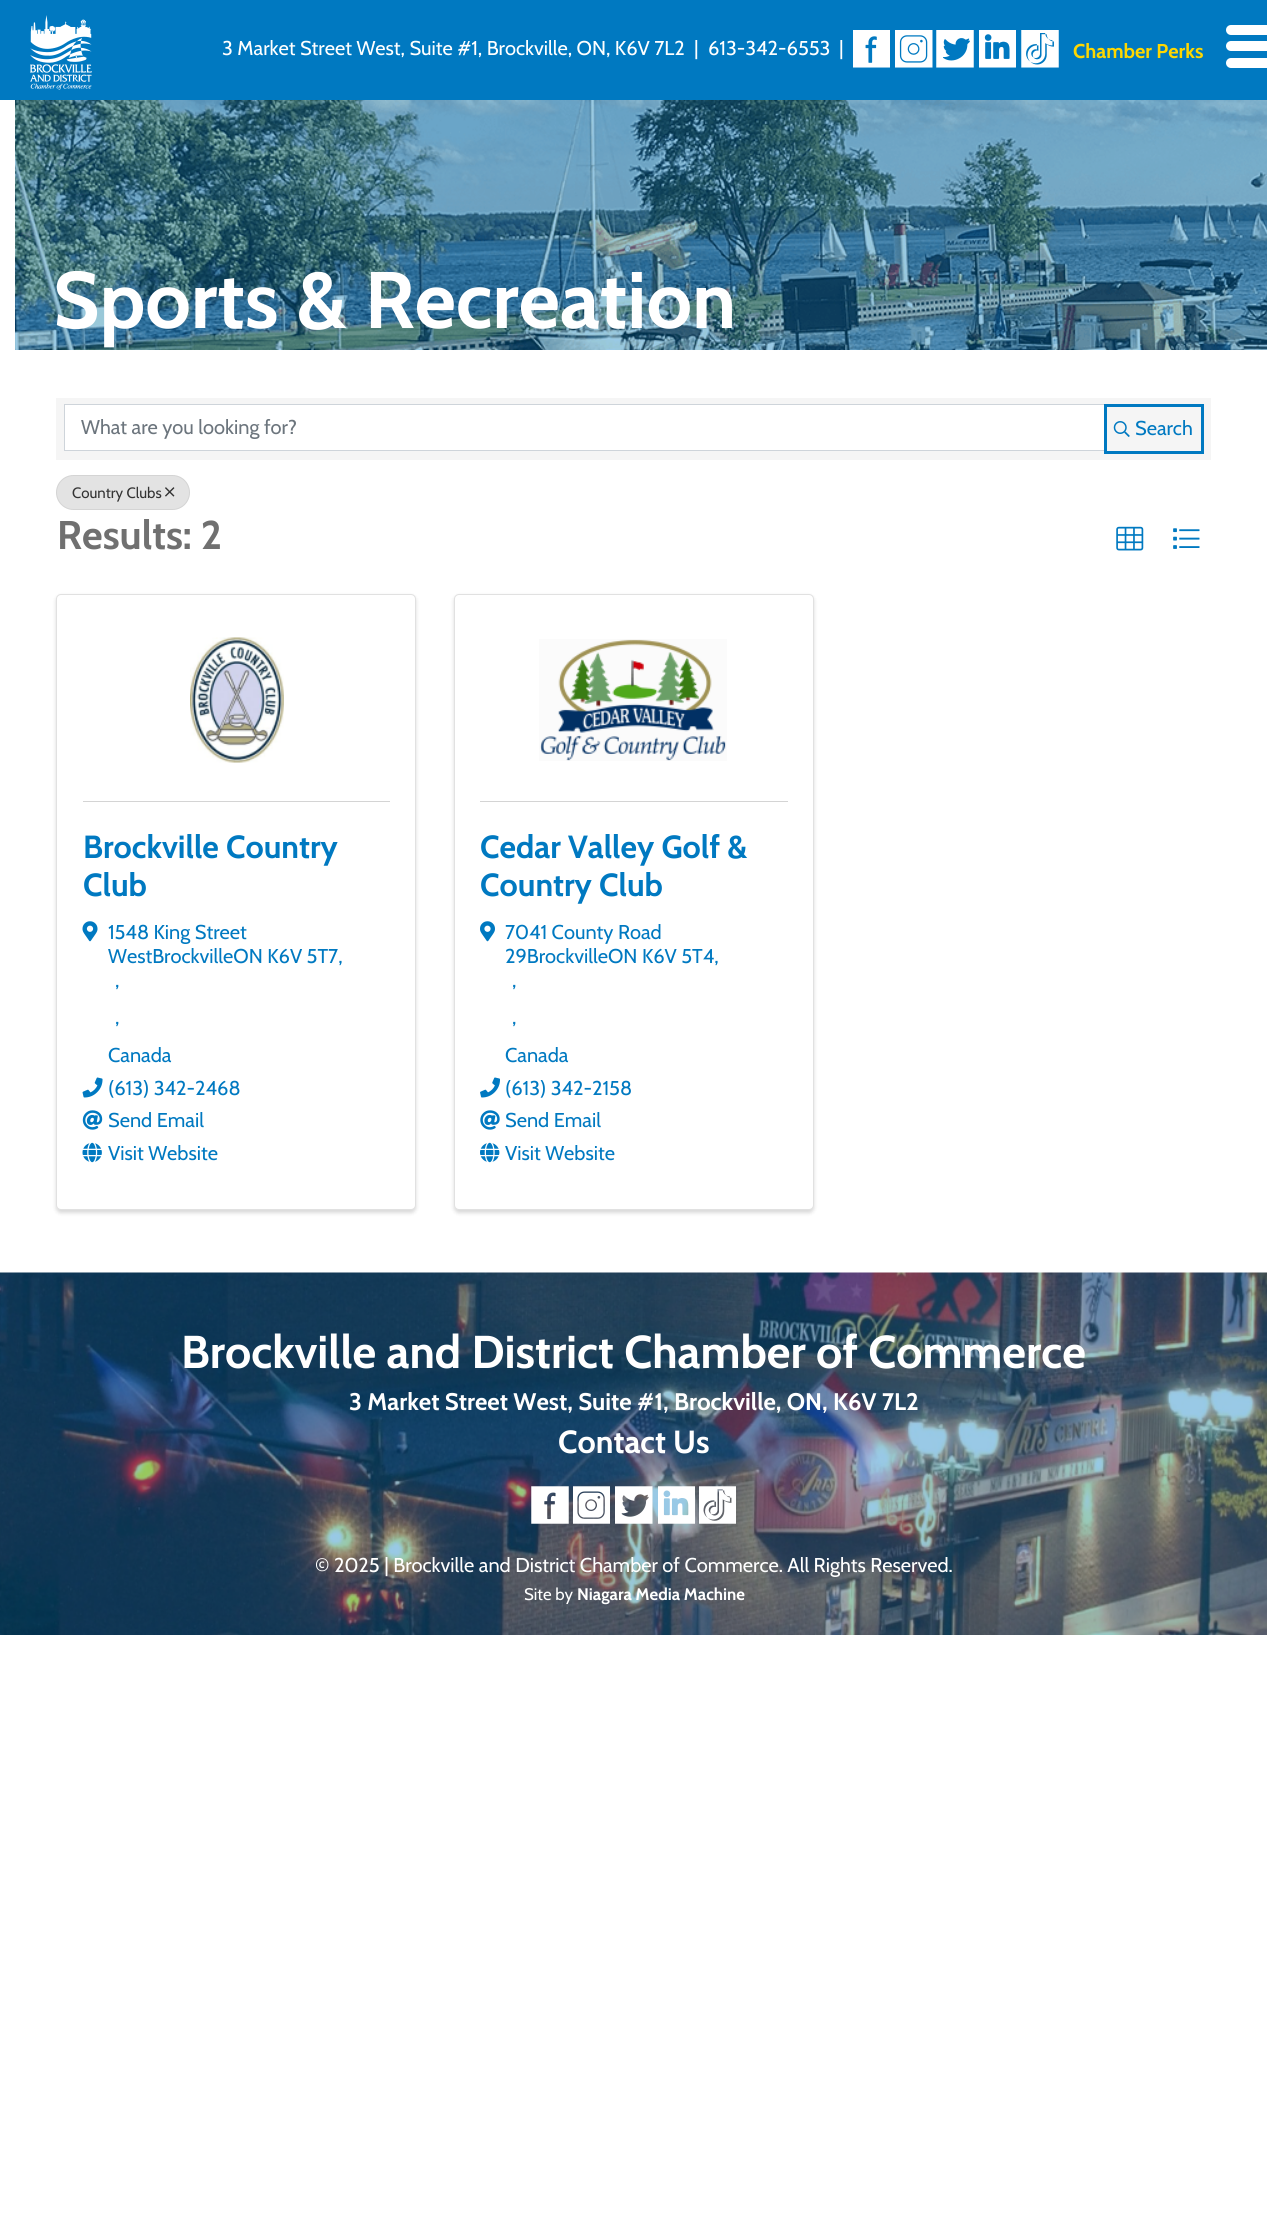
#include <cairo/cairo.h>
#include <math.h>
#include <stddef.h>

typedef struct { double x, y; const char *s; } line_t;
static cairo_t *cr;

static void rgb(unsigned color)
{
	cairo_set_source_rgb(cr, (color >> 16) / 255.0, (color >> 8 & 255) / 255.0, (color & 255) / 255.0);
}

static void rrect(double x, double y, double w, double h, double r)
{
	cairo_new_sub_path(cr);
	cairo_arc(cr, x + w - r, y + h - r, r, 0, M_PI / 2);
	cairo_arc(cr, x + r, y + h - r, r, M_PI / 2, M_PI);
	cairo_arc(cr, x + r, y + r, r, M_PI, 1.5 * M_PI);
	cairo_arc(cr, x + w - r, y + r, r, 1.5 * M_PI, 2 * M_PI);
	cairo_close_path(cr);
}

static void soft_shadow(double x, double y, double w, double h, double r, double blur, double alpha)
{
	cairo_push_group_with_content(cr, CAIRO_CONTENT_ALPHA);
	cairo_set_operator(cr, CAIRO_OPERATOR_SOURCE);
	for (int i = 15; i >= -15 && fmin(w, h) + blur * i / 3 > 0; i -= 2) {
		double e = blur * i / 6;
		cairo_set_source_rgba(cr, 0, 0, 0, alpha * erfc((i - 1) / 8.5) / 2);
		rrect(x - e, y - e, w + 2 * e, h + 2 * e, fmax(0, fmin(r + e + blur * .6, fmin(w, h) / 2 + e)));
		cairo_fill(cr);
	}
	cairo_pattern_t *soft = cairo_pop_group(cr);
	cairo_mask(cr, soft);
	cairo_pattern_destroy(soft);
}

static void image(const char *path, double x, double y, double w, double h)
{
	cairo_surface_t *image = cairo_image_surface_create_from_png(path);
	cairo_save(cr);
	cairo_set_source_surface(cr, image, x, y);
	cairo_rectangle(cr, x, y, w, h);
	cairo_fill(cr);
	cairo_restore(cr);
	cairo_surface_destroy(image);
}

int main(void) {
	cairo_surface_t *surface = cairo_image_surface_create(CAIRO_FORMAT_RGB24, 1267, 2224);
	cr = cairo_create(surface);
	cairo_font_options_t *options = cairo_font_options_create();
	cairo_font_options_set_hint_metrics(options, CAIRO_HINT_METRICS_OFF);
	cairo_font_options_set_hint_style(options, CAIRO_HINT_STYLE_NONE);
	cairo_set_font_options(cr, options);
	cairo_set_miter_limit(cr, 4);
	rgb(0xffffff);
	cairo_paint(cr);
	rgb(0x0079c1);
	cairo_rectangle(cr, 0, 0, 1267, 100);
	cairo_fill(cr);
	image("img/1.png", 30, 15, 62, 75);
	image("img/2.png", 853, 30, 37, 38);
	image("img/3.png", 895, 30, 38, 38);
	image("img/4.png", 936, 30, 38, 38);
	image("img/5.png", 979, 30, 37, 38);
	image("img/6.png", 1021, 30, 38, 38);
	rgb(0xffffff);
	rrect(1226, 25, 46, 10, 5);
	cairo_fill(cr);
	rrect(1226, 41, 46, 10, 5);
	cairo_fill(cr);
	rrect(1226, 58, 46, 10, 5);
	cairo_fill(cr);
	image("img/7.png", 15, 100, 1252, 250);
	rgb(0xf5f5f5);
	cairo_rectangle(cr, 56, 398, 1155, 62);
	cairo_fill(cr);
	rgb(0xffffff);
	cairo_rectangle(cr, 64.5, 404.5, 1040, 46);
	cairo_fill_preserve(cr);
	rgb(0xced4da);
	cairo_set_line_width(cr, 1);
	cairo_stroke(cr);
	cairo_rectangle(cr, 1105.5, 405.5, 97, 47);
	rgb(0x0079c1);
	cairo_set_line_width(cr, 3);
	cairo_stroke(cr);
	image("img/8.png", 1113, 421, 17, 16);
	rgb(0xe3e3e3);
	rrect(56, 475, 134, 35, 17.5);
	cairo_fill(cr);
	rrect(56.5, 475.5, 133, 34, 17);
	cairo_set_source_rgba(cr, 0, 0, 0, 0.07);
	cairo_set_line_width(cr, 1);
	cairo_stroke(cr);
	image("img/9.png", 165, 487, 10, 10);
	image("img/10.png", 1116, 526, 28, 25);
	image("img/11.png", 1173, 528, 27, 21);
	rgb(0x000000);
	soft_shadow(56, 596, 360, 617, 5, 2, 0.15);
	rgb(0xffffff);
	rrect(56, 594, 360, 616, 5);
	cairo_fill(cr);
	rrect(56.5, 594.5, 359, 615, 4.5);
	cairo_set_source_rgba(cr, 0, 0, 0, 0.12);
	cairo_stroke(cr);
	image("img/12.png", 190, 637, 94, 126);
	rgb(0xd4d4d4);
	cairo_rectangle(cr, 83, 801, 307, 1);
	cairo_fill(cr);
	image("img/13.png", 82, 921, 16, 21);
	image("img/14.png", 82, 1077, 21, 21);
	image("img/15.png", 82, 1110, 21, 20);
	image("img/16.png", 82, 1142, 20, 21);
	rgb(0x000000);
	soft_shadow(454, 596, 360, 617, 5, 2, 0.15);
	rgb(0xffffff);
	rrect(454, 594, 360, 616, 5);
	cairo_fill(cr);
	rrect(454.5, 594.5, 359, 615, 4.5);
	cairo_set_source_rgba(cr, 0, 0, 0, 0.12);
	cairo_stroke(cr);
	image("img/17.png", 539, 639, 188, 122);
	rgb(0xd4d4d4);
	cairo_rectangle(cr, 480, 801, 308, 1);
	cairo_fill(cr);
	image("img/18.png", 480, 921, 15, 21);
	image("img/19.png", 480, 1077, 20, 21);
	image("img/20.png", 480, 1110, 20, 20);
	image("img/21.png", 480, 1142, 20, 21);
	image("img/22.png", 0, 1272, 1267, 363);
	image("img/23.png", 531, 1486, 38, 38);
	image("img/24.png", 573, 1486, 37, 38);
	image("img/25.png", 615, 1486, 38, 38);
	image("img/26.png", 658, 1486, 37, 38);
	image("img/27.png", 699, 1486, 37, 38);
	cairo_select_font_face(cr, "Cabin", CAIRO_FONT_SLANT_NORMAL, CAIRO_FONT_WEIGHT_NORMAL);
	cairo_set_font_size(cr, 20);
	rgb(0xffffff);
	{
		static const line_t items[] = {
			{222, 55, "3 Market Street West, Suite #1, Brockville, ON, K6V 7L2"},
			{694, 55, "|"},
			{708, 55, "613-342-6553"},
			{839, 55, "|"},
		};
		for (size_t i = 0; i < sizeof items / sizeof *items; i++) {
			cairo_move_to(cr, items[i].x, items[i].y);
			cairo_show_text(cr, items[i].s);
		}
	}
	cairo_select_font_face(cr, "Cabin", CAIRO_FONT_SLANT_NORMAL, CAIRO_FONT_WEIGHT_BOLD);
	rgb(0xffd700);
	cairo_move_to(cr, 1073, 58);
	cairo_show_text(cr, "Chamber Perks");
	cairo_set_font_size(cr, 80);
	rgb(0xffffff);
	cairo_move_to(cr, 53, 328);
	cairo_show_text(cr, "Sports & Recreation");
	cairo_select_font_face(cr, "Cabin", CAIRO_FONT_SLANT_NORMAL, CAIRO_FONT_WEIGHT_NORMAL);
	cairo_set_font_size(cr, 20);
	rgb(0x6c757d);
	cairo_move_to(cr, 81, 434);
	cairo_show_text(cr, "What are you looking for?");
	rgb(0x0079c1);
	cairo_move_to(cr, 1135, 435);
	cairo_show_text(cr, "Search");
	cairo_set_font_size(cr, 15);
	rgb(0x333333);
	cairo_move_to(cr, 72, 498);
	cairo_show_text(cr, "Country Clubs");
	cairo_select_font_face(cr, "Cabin", CAIRO_FONT_SLANT_NORMAL, CAIRO_FONT_WEIGHT_BOLD);
	cairo_set_font_size(cr, 40);
	rgb(0x707070);
	cairo_move_to(cr, 57, 549);
	cairo_show_text(cr, "Results: 2");
	cairo_set_font_size(cr, 32);
	rgb(0x0079c1);
	cairo_move_to(cr, 83, 858);
	cairo_show_text(cr, "Brockville Country");
	cairo_move_to(cr, 83, 896);
	cairo_show_text(cr, "Club");
	cairo_select_font_face(cr, "Cabin", CAIRO_FONT_SLANT_NORMAL, CAIRO_FONT_WEIGHT_NORMAL);
	cairo_set_font_size(cr, 20);
	{
		static const line_t items[] = {
			{108, 939, "1548 King Street"},
			{108, 963, "WestBrockvilleON K6V 5T7,"},
			{115, 987, ","},
			{115, 1024, ","},
			{108, 1062, "Canada"},
			{108, 1095, "(613) 342-2468"},
			{108, 1127, "Send Email"},
			{108, 1160, "Visit Website"},
		};
		for (size_t i = 0; i < sizeof items / sizeof *items; i++) {
			cairo_move_to(cr, items[i].x, items[i].y);
			cairo_show_text(cr, items[i].s);
		}
	}
	cairo_select_font_face(cr, "Cabin", CAIRO_FONT_SLANT_NORMAL, CAIRO_FONT_WEIGHT_BOLD);
	cairo_set_font_size(cr, 32);
	cairo_move_to(cr, 480, 858);
	cairo_show_text(cr, "Cedar Valley Golf &");
	cairo_move_to(cr, 480, 896);
	cairo_show_text(cr, "Country Club");
	cairo_select_font_face(cr, "Cabin", CAIRO_FONT_SLANT_NORMAL, CAIRO_FONT_WEIGHT_NORMAL);
	cairo_set_font_size(cr, 20);
	{
		static const line_t items[] = {
			{505, 939, "7041 County Road"},
			{505, 963, "29BrockvilleON K6V 5T4,"},
			{512, 987, ","},
			{512, 1024, ","},
			{505, 1062, "Canada"},
			{505, 1095, "(613) 342-2158"},
			{505, 1127, "Send Email"},
			{505, 1160, "Visit Website"},
		};
		for (size_t i = 0; i < sizeof items / sizeof *items; i++) {
			cairo_move_to(cr, items[i].x, items[i].y);
			cairo_show_text(cr, items[i].s);
		}
	}
	cairo_select_font_face(cr, "Cabin", CAIRO_FONT_SLANT_NORMAL, CAIRO_FONT_WEIGHT_BOLD);
	cairo_set_font_size(cr, 46);
	rgb(0xffffff);
	cairo_move_to(cr, 181, 1368);
	cairo_show_text(cr, "Brockville and District Chamber of Commerce");
	cairo_set_font_size(cr, 24);
	cairo_move_to(cr, 349, 1410);
	cairo_show_text(cr, "3 Market Street West, Suite #1, Brockville, ON, K6V 7L2");
	cairo_set_font_size(cr, 32);
	cairo_move_to(cr, 558, 1453);
	cairo_show_text(cr, "Contact Us");
	cairo_select_font_face(cr, "Cabin", CAIRO_FONT_SLANT_NORMAL, CAIRO_FONT_WEIGHT_NORMAL);
	cairo_set_font_size(cr, 20);
	cairo_move_to(cr, 315, 1572);
	cairo_show_text(cr, "© 2025 | Brockville and District Chamber of Commerce. All Rights Reserved.");
	cairo_set_font_size(cr, 16.75);
	cairo_move_to(cr, 524, 1600);
	cairo_show_text(cr, "Site by");
	cairo_select_font_face(cr, "Cabin", CAIRO_FONT_SLANT_NORMAL, CAIRO_FONT_WEIGHT_BOLD);
	cairo_move_to(cr, 577, 1600);
	cairo_show_text(cr, "Niagara Media Machine");
	cairo_surface_write_to_png(surface, "page.png");
	cairo_font_options_destroy(options);
	cairo_destroy(cr);
	cairo_surface_destroy(surface);
	return 0;
}
